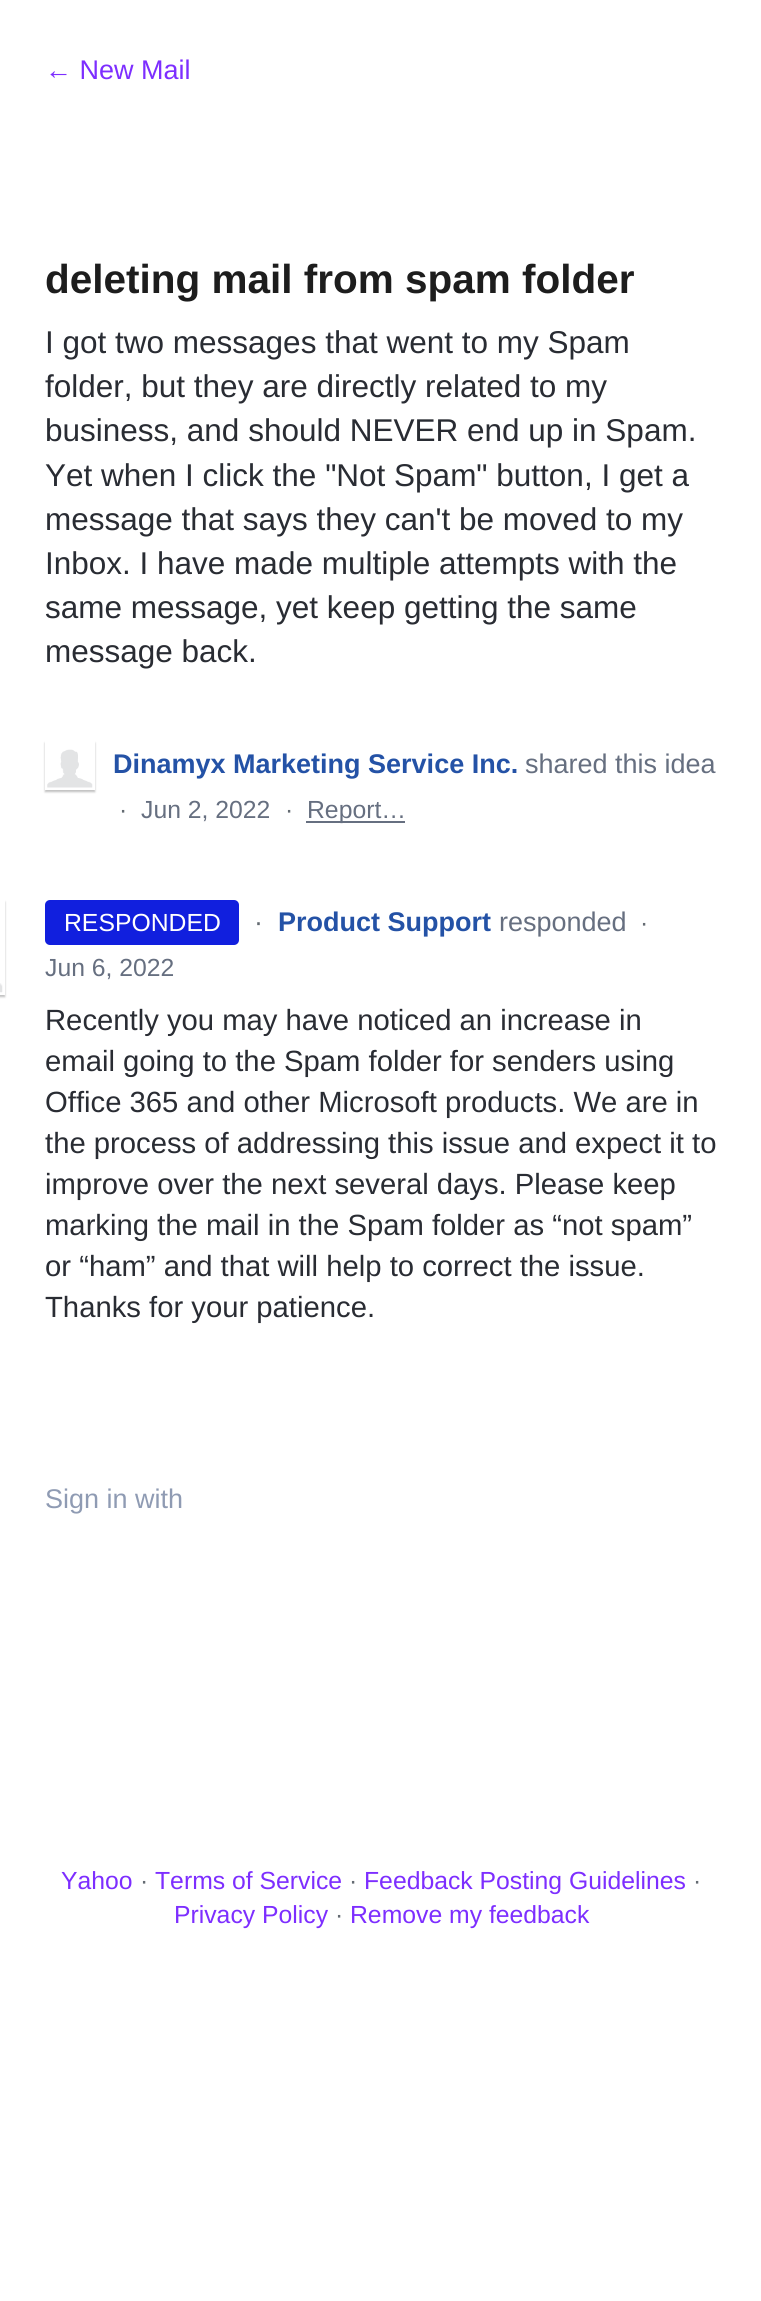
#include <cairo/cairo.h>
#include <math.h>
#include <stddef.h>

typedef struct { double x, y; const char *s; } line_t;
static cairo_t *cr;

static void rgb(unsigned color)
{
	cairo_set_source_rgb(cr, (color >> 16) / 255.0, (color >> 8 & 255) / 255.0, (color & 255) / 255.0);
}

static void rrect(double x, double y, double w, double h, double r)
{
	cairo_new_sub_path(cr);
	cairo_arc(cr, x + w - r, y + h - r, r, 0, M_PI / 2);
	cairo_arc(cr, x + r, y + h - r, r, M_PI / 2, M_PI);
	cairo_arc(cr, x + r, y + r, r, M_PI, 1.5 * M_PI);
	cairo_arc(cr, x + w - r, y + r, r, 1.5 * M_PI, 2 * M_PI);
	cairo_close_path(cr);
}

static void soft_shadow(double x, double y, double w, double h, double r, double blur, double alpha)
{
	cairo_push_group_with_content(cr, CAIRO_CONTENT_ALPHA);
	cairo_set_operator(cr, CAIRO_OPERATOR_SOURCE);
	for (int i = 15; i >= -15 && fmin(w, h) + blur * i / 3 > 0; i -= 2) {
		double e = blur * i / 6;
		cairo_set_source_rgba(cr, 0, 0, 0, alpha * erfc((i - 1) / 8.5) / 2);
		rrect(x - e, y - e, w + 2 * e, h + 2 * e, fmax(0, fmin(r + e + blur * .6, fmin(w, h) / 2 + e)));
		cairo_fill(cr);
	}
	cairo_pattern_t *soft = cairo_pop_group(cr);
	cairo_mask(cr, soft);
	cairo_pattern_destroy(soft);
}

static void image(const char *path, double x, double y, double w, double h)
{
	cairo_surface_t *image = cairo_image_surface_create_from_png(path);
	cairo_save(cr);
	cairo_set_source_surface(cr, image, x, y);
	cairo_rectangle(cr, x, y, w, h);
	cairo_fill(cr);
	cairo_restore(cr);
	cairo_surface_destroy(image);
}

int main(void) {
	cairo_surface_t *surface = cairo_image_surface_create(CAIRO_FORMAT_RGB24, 761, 2301);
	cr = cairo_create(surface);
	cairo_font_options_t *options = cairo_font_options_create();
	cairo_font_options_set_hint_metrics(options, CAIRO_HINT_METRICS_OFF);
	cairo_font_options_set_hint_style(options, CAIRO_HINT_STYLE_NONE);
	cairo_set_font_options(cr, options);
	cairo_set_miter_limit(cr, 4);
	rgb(0xffffff);
	cairo_paint(cr);
	cairo_save(cr);
	cairo_set_fill_rule(cr, CAIRO_FILL_RULE_EVEN_ODD);
	cairo_new_path(cr);
	cairo_move_to(cr, 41, 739);
	cairo_line_to(cr, 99, 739);
	cairo_line_to(cr, 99, 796);
	cairo_line_to(cr, 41, 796);
	cairo_close_path(cr);
	cairo_move_to(cr, 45, 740);
	cairo_line_to(cr, 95, 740);
	cairo_line_to(cr, 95, 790);
	cairo_line_to(cr, 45, 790);
	cairo_close_path(cr);
	cairo_clip(cr);
	rgb(0x000000);
	soft_shadow(45, 743, 50, 49, 0, 1, 0.25);
	cairo_restore(cr);
	cairo_rectangle(cr, 46, 741, 48, 48);
	rgb(0xffffff);
	cairo_stroke(cr);
	image("img/1.png", 47, 749, 46, 39);
	rgb(0x666f80);
	cairo_rectangle(cr, 306, 821, 99, 2);
	cairo_fill(cr);
	rgb(0x111fde);
	rrect(45, 900, 194, 45, 5);
	cairo_fill(cr);
	cairo_save(cr);
	cairo_set_fill_rule(cr, CAIRO_FILL_RULE_EVEN_ODD);
	cairo_new_path(cr);
	cairo_move_to(cr, 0, 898);
	cairo_line_to(cr, 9, 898);
	cairo_line_to(cr, 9, 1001);
	cairo_line_to(cr, 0, 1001);
	cairo_close_path(cr);
	cairo_move_to(cr, -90, 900);
	cairo_line_to(cr, 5, 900);
	cairo_line_to(cr, 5, 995);
	cairo_line_to(cr, -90, 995);
	cairo_close_path(cr);
	cairo_clip(cr);
	rgb(0x000000);
	soft_shadow(-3, 902, 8, 95, 0, 1, 0.25);
	cairo_restore(cr);
	cairo_rectangle(cr, -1, 901, 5, 93);
	rgb(0xffffff);
	cairo_stroke(cr);
	image("img/2.png", 0, 983, 3, 10);
	cairo_select_font_face(cr, "Liberation Sans", CAIRO_FONT_SLANT_NORMAL, CAIRO_FONT_WEIGHT_NORMAL);
	cairo_set_font_size(cr, 27);
	rgb(0x7d2eff);
	cairo_move_to(cr, 45, 79);
	cairo_show_text(cr, "← New Mail");
	cairo_select_font_face(cr, "Liberation Sans", CAIRO_FONT_SLANT_NORMAL, CAIRO_FONT_WEIGHT_BOLD);
	cairo_set_font_size(cr, 40.5);
	rgb(0x1d1d1d);
	cairo_move_to(cr, 45, 293);
	cairo_show_text(cr, "deleting mail from spam folder");
	cairo_select_font_face(cr, "Liberation Sans", CAIRO_FONT_SLANT_NORMAL, CAIRO_FONT_WEIGHT_NORMAL);
	cairo_set_font_size(cr, 31.5);
	rgb(0x292c33);
	{
		static const line_t items[] = {
			{45, 353, "I got two messages that went to my Spam"},
			{45, 397, "folder, but they are directly related to my"},
			{45, 441, "business, and should NEVER end up in Spam."},
			{45, 486, "Yet when I click the \"Not Spam\" button, I get a"},
			{45, 530, "message that says they can't be moved to my"},
			{45, 574, "Inbox. I have made multiple attempts with the"},
			{45, 618, "same message, yet keep getting the same"},
			{45, 662, "message back."},
		};
		for (size_t i = 0; i < sizeof items / sizeof *items; i++) {
			cairo_move_to(cr, items[i].x, items[i].y);
			cairo_show_text(cr, items[i].s);
		}
	}
	cairo_select_font_face(cr, "Liberation Sans", CAIRO_FONT_SLANT_NORMAL, CAIRO_FONT_WEIGHT_BOLD);
	cairo_set_font_size(cr, 27);
	rgb(0x2452a6);
	cairo_move_to(cr, 113, 773);
	cairo_show_text(cr, "Dinamyx Marketing Service Inc.");
	cairo_select_font_face(cr, "Liberation Sans", CAIRO_FONT_SLANT_NORMAL, CAIRO_FONT_WEIGHT_NORMAL);
	rgb(0x666f80);
	cairo_move_to(cr, 525, 773);
	cairo_show_text(cr, "shared this idea");
	cairo_set_font_size(cr, 24.75);
	rgb(0x646b72);
	cairo_move_to(cr, 119, 818);
	cairo_show_text(cr, "·");
	rgb(0x666f80);
	cairo_move_to(cr, 141, 818);
	cairo_show_text(cr, "Jun 2, 2022");
	rgb(0x646b72);
	cairo_move_to(cr, 285, 818);
	cairo_show_text(cr, "·");
	rgb(0x666f80);
	cairo_move_to(cr, 307, 818);
	cairo_show_text(cr, "Report…");
	rgb(0xffffff);
	cairo_move_to(cr, 64, 931);
	cairo_show_text(cr, "RESPONDED");
	cairo_set_font_size(cr, 27);
	rgb(0x646b72);
	cairo_move_to(cr, 254, 931);
	cairo_show_text(cr, "·");
	cairo_select_font_face(cr, "Liberation Sans", CAIRO_FONT_SLANT_NORMAL, CAIRO_FONT_WEIGHT_BOLD);
	rgb(0x2452a6);
	cairo_move_to(cr, 278, 931);
	cairo_show_text(cr, "Product Support");
	cairo_select_font_face(cr, "Liberation Sans", CAIRO_FONT_SLANT_NORMAL, CAIRO_FONT_WEIGHT_NORMAL);
	rgb(0x666f80);
	cairo_move_to(cr, 499, 931);
	cairo_show_text(cr, "responded");
	cairo_set_font_size(cr, 24.75);
	rgb(0x646b72);
	cairo_move_to(cr, 640, 931);
	cairo_show_text(cr, "·");
	rgb(0x666f80);
	cairo_move_to(cr, 45, 976);
	cairo_show_text(cr, "Jun 6, 2022");
	cairo_set_font_size(cr, 29.25);
	rgb(0x292c33);
	{
		static const line_t items[] = {
			{45, 1030, "Recently you may have noticed an increase in"},
			{45, 1071, "email going to the Spam folder for senders using"},
			{45, 1112, "Office 365 and other Microsoft products. We are in"},
			{45, 1153, "the process of addressing this issue and expect it to"},
			{45, 1194, "improve over the next several days. Please keep"},
			{45, 1235, "marking the mail in the Spam folder as “not spam”"},
			{45, 1276, "or “ham” and that will help to correct the issue."},
			{45, 1317, "Thanks for your patience."},
		};
		for (size_t i = 0; i < sizeof items / sizeof *items; i++) {
			cairo_move_to(cr, items[i].x, items[i].y);
			cairo_show_text(cr, items[i].s);
		}
	}
	cairo_set_font_size(cr, 27);
	rgb(0x8f9bb3);
	cairo_move_to(cr, 45, 1508);
	cairo_show_text(cr, "Sign in with");
	cairo_set_font_size(cr, 24.75);
	rgb(0x7d2eff);
	cairo_move_to(cr, 61, 1889);
	cairo_show_text(cr, "Yahoo");
	rgb(0x646b72);
	cairo_move_to(cr, 140, 1889);
	cairo_show_text(cr, "·");
	rgb(0x7d2eff);
	cairo_move_to(cr, 155, 1889);
	cairo_show_text(cr, "Terms of Service");
	rgb(0x646b72);
	cairo_move_to(cr, 349, 1889);
	cairo_show_text(cr, "·");
	rgb(0x7d2eff);
	cairo_move_to(cr, 364, 1889);
	cairo_show_text(cr, "Feedback Posting Guidelines");
	rgb(0x646b72);
	cairo_move_to(cr, 693, 1889);
	cairo_show_text(cr, "·");
	rgb(0x7d2eff);
	cairo_move_to(cr, 174, 1923);
	cairo_show_text(cr, "Privacy Policy");
	rgb(0x646b72);
	cairo_move_to(cr, 335, 1923);
	cairo_show_text(cr, "·");
	rgb(0x7d2eff);
	cairo_move_to(cr, 350, 1923);
	cairo_show_text(cr, "Remove my feedback");
	cairo_surface_write_to_png(surface, "page.png");
	cairo_font_options_destroy(options);
	cairo_destroy(cr);
	cairo_surface_destroy(surface);
	return 0;
}
